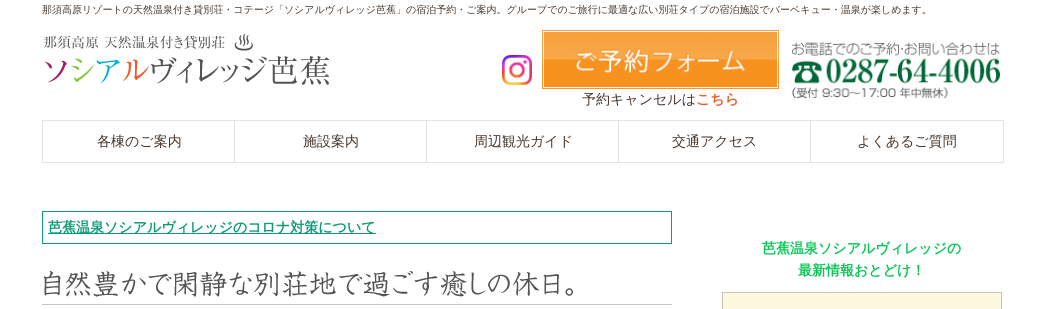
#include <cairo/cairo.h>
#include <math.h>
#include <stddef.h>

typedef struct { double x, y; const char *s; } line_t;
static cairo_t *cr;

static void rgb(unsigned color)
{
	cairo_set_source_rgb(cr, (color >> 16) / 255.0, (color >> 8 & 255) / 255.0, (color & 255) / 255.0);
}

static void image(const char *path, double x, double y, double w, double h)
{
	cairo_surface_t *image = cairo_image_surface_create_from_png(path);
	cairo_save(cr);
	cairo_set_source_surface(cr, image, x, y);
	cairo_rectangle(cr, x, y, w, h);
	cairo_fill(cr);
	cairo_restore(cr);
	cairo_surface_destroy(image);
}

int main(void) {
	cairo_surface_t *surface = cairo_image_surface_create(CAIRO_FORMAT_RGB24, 1044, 309);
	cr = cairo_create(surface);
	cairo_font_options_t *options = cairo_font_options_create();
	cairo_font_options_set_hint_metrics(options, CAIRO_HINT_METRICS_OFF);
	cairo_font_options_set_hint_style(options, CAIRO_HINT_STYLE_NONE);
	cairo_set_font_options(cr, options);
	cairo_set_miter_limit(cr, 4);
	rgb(0xffffff);
	cairo_paint(cr);
	image("img/1.png", 43, 34, 287, 51);
	image("img/2.png", 502, 55, 30, 30);
	image("img/3.png", 792, 42, 209, 57);
	image("img/4.png", 542, 30, 237, 59);
	cairo_rectangle(cr, 42.5, 120.5, 193, 42);
	rgb(0xe3e3e3);
	cairo_set_line_width(cr, 1);
	cairo_stroke(cr);
	rgb(0xffffff);
	cairo_rectangle(cr, 235, 121, 1, 41);
	cairo_fill(cr);
	cairo_rectangle(cr, 234.5, 120.5, 193, 42);
	rgb(0xe3e3e3);
	cairo_stroke(cr);
	rgb(0xffffff);
	cairo_rectangle(cr, 427, 121, 1, 41);
	cairo_fill(cr);
	cairo_rectangle(cr, 426.5, 120.5, 193, 42);
	rgb(0xe3e3e3);
	cairo_stroke(cr);
	rgb(0xffffff);
	cairo_rectangle(cr, 619, 121, 1, 41);
	cairo_fill(cr);
	cairo_rectangle(cr, 618.5, 120.5, 193, 42);
	rgb(0xe3e3e3);
	cairo_stroke(cr);
	rgb(0xffffff);
	cairo_rectangle(cr, 811, 121, 1, 41);
	cairo_fill(cr);
	cairo_rectangle(cr, 810.5, 120.5, 193, 42);
	rgb(0xe3e3e3);
	cairo_stroke(cr);
	cairo_rectangle(cr, 42.5, 211.5, 629, 32);
	rgb(0x0e9a77);
	cairo_stroke(cr);
	cairo_rectangle(cr, 48, 233, 328, 1);
	cairo_fill(cr);
	rgb(0xc8c7c7);
	cairo_rectangle(cr, 42, 304, 630, 1);
	cairo_fill(cr);
	image("img/5.png", 43, 271, 530, 26);
	rgb(0xfcf9e0);
	cairo_rectangle(cr, 722.5, 292.5, 279, 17);
	cairo_fill_preserve(cr);
	rgb(0xccc3ad);
	cairo_stroke(cr);
	cairo_select_font_face(cr, "WenQuanYi Zen Hei Medium", CAIRO_FONT_SLANT_NORMAL, CAIRO_FONT_WEIGHT_NORMAL);
	cairo_set_font_size(cr, 10);
	rgb(0x44362c);
	cairo_move_to(cr, 42, 13);
	cairo_show_text(cr, "那須高原リゾートの天然温泉付き貸別荘・コテージ「ソシアルヴィレッジ芭蕉」の宿泊予約・ご案内。グループでのご旅行に最適な広い別荘タイプの宿泊施設でバーベキュー・温泉が楽しめます。");
	cairo_set_font_size(cr, 14);
	cairo_move_to(cr, 582, 104);
	cairo_show_text(cr, "予約キャンセルは");
	cairo_select_font_face(cr, "WenQuanYi Zen Hei", CAIRO_FONT_SLANT_NORMAL, CAIRO_FONT_WEIGHT_BOLD);
	rgb(0xf05a28);
	cairo_move_to(cr, 696, 104);
	cairo_show_text(cr, "こちら");
	cairo_select_font_face(cr, "WenQuanYi Zen Hei Medium", CAIRO_FONT_SLANT_NORMAL, CAIRO_FONT_WEIGHT_NORMAL);
	rgb(0x44362c);
	{
		static const line_t items[] = {
			{97, 146, "各棟のご案内"},
			{303, 146, "施設案内"},
			{474, 146, "周辺観光ガイド"},
			{672, 146, "交通アクセス"},
			{857, 146, "よくあるご質問"},
		};
		for (size_t i = 0; i < sizeof items / sizeof *items; i++) {
			cairo_move_to(cr, items[i].x, items[i].y);
			cairo_show_text(cr, items[i].s);
		}
	}
	cairo_select_font_face(cr, "WenQuanYi Zen Hei", CAIRO_FONT_SLANT_NORMAL, CAIRO_FONT_WEIGHT_BOLD);
	rgb(0x0e9a77);
	cairo_move_to(cr, 48, 232);
	cairo_show_text(cr, "芭蕉温泉ソシアルヴィレッジのコロナ対策について");
	rgb(0x06c755);
	cairo_move_to(cr, 762, 253);
	cairo_show_text(cr, "芭蕉温泉ソシアルヴィレッジの");
	cairo_move_to(cr, 798, 275);
	cairo_show_text(cr, "最新情報おとどけ！");
	cairo_surface_write_to_png(surface, "page.png");
	cairo_font_options_destroy(options);
	cairo_destroy(cr);
	cairo_surface_destroy(surface);
	return 0;
}
